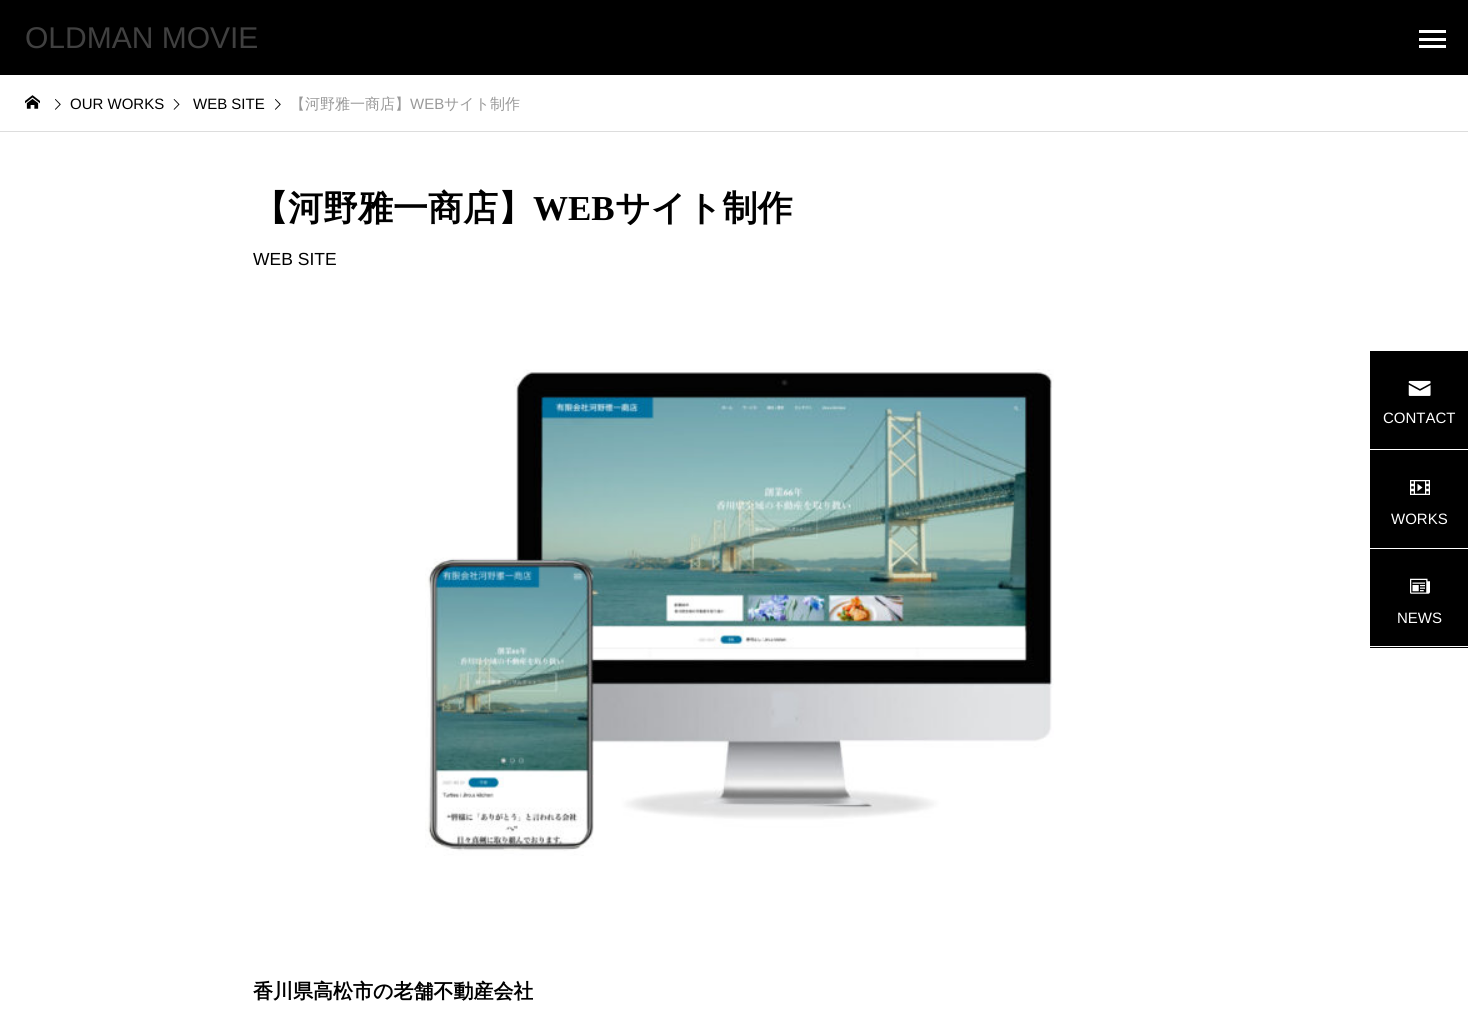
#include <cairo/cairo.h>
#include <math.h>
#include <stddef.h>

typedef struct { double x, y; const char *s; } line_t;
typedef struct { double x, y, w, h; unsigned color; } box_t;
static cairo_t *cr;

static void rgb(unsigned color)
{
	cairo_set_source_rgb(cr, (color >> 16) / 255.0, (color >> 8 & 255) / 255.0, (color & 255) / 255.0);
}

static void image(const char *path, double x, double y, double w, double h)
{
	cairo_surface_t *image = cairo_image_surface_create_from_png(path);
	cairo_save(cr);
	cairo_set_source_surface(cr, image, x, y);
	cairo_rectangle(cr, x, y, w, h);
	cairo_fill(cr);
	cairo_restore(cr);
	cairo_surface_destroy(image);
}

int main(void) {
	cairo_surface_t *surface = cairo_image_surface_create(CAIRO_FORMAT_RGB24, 1468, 1021);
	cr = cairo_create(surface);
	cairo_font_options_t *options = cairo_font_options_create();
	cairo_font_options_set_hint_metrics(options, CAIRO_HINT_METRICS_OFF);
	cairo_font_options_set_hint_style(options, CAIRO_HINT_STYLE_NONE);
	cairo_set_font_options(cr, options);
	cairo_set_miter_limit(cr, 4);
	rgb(0xffffff);
	cairo_paint(cr);
	{
		static const box_t items[] = {
			{0, 0, 1468, 75, 0x000000},
			{1419, 30, 27, 3, 0xffffff},
			{1419, 38, 27, 3, 0xffffff},
			{1419, 45, 27, 3, 0xffffff},
			{0, 131, 1468, 1, 0xdddddd},
		};
		for (size_t i = 0; i < sizeof items / sizeof *items; i++) {
			rgb(items[i].color);
			cairo_rectangle(cr, items[i].x, items[i].y, items[i].w, items[i].h);
			cairo_fill(cr);
		}
	}
	image("img/1.png", 25, 95, 15, 14);
	image("img/2.png", 55, 99, 6, 11);
	image("img/3.png", 173, 99, 7, 11);
	image("img/2.png", 275, 99, 6, 11);
	image("img/4.png", 425, 369, 629, 487);
	rgb(0x000000);
	cairo_rectangle(cr, 1370, 351, 98, 98);
	cairo_fill(cr);
	image("img/5.png", 1408, 380, 23, 16);
	cairo_rectangle(cr, 1370, 450, 98, 98);
	cairo_fill(cr);
	image("img/6.png", 1410, 480, 20, 15);
	cairo_rectangle(cr, 1370, 549, 98, 99);
	cairo_fill(cr);
	rgb(0xffffff);
	cairo_rectangle(cr, 1369, 646, 99, 1);
	cairo_fill(cr);
	image("img/7.png", 1410, 578, 20, 16);
	cairo_select_font_face(cr, "Liberation Sans", CAIRO_FONT_SLANT_NORMAL, CAIRO_FONT_WEIGHT_NORMAL);
	cairo_set_font_size(cr, 30);
	rgb(0x404040);
	cairo_move_to(cr, 25, 48);
	cairo_show_text(cr, "OLDMAN MOVIE");
	cairo_set_font_size(cr, 15);
	rgb(0x000000);
	cairo_move_to(cr, 70, 109);
	cairo_show_text(cr, "OUR WORKS");
	cairo_move_to(cr, 193, 109);
	cairo_show_text(cr, "WEB SITE");
	cairo_select_font_face(cr, "WenQuanYi Zen Hei Medium", CAIRO_FONT_SLANT_NORMAL, CAIRO_FONT_WEIGHT_NORMAL);
	rgb(0x999999);
	cairo_move_to(cr, 290, 109);
	cairo_show_text(cr, "【河野雅一商店】");
	cairo_select_font_face(cr, "Liberation Sans", CAIRO_FONT_SLANT_NORMAL, CAIRO_FONT_WEIGHT_NORMAL);
	cairo_move_to(cr, 410, 109);
	cairo_show_text(cr, "WEB");
	cairo_select_font_face(cr, "WenQuanYi Zen Hei Medium", CAIRO_FONT_SLANT_NORMAL, CAIRO_FONT_WEIGHT_NORMAL);
	cairo_move_to(cr, 444, 109);
	cairo_show_text(cr, "サイト制作");
	cairo_select_font_face(cr, "WenQuanYi Zen Hei", CAIRO_FONT_SLANT_NORMAL, CAIRO_FONT_WEIGHT_BOLD);
	cairo_set_font_size(cr, 35);
	rgb(0x000000);
	cairo_move_to(cr, 253, 220);
	cairo_show_text(cr, "【河野雅一商店】");
	cairo_select_font_face(cr, "Liberation Serif", CAIRO_FONT_SLANT_NORMAL, CAIRO_FONT_WEIGHT_BOLD);
	cairo_move_to(cr, 533, 220);
	cairo_show_text(cr, "WEB");
	cairo_select_font_face(cr, "WenQuanYi Zen Hei", CAIRO_FONT_SLANT_NORMAL, CAIRO_FONT_WEIGHT_BOLD);
	cairo_move_to(cr, 615, 220);
	cairo_show_text(cr, "サイト制作");
	cairo_select_font_face(cr, "Liberation Sans", CAIRO_FONT_SLANT_NORMAL, CAIRO_FONT_WEIGHT_NORMAL);
	cairo_set_font_size(cr, 17.5);
	cairo_move_to(cr, 253, 265);
	cairo_show_text(cr, "WEB SITE");
	cairo_select_font_face(cr, "WenQuanYi Zen Hei", CAIRO_FONT_SLANT_NORMAL, CAIRO_FONT_WEIGHT_BOLD);
	cairo_set_font_size(cr, 20);
	cairo_move_to(cr, 253, 998);
	cairo_show_text(cr, "香川県高松市の老舗不動産会社");
	cairo_select_font_face(cr, "Liberation Sans", CAIRO_FONT_SLANT_NORMAL, CAIRO_FONT_WEIGHT_NORMAL);
	cairo_set_font_size(cr, 15);
	rgb(0xffffff);
	{
		static const line_t items[] = {
			{1383, 423, "CONTACT"},
			{1391, 524, "WORKS"},
			{1397, 623, "NEWS"},
		};
		for (size_t i = 0; i < sizeof items / sizeof *items; i++) {
			cairo_move_to(cr, items[i].x, items[i].y);
			cairo_show_text(cr, items[i].s);
		}
	}
	cairo_surface_write_to_png(surface, "page.png");
	cairo_font_options_destroy(options);
	cairo_destroy(cr);
	cairo_surface_destroy(surface);
	return 0;
}
